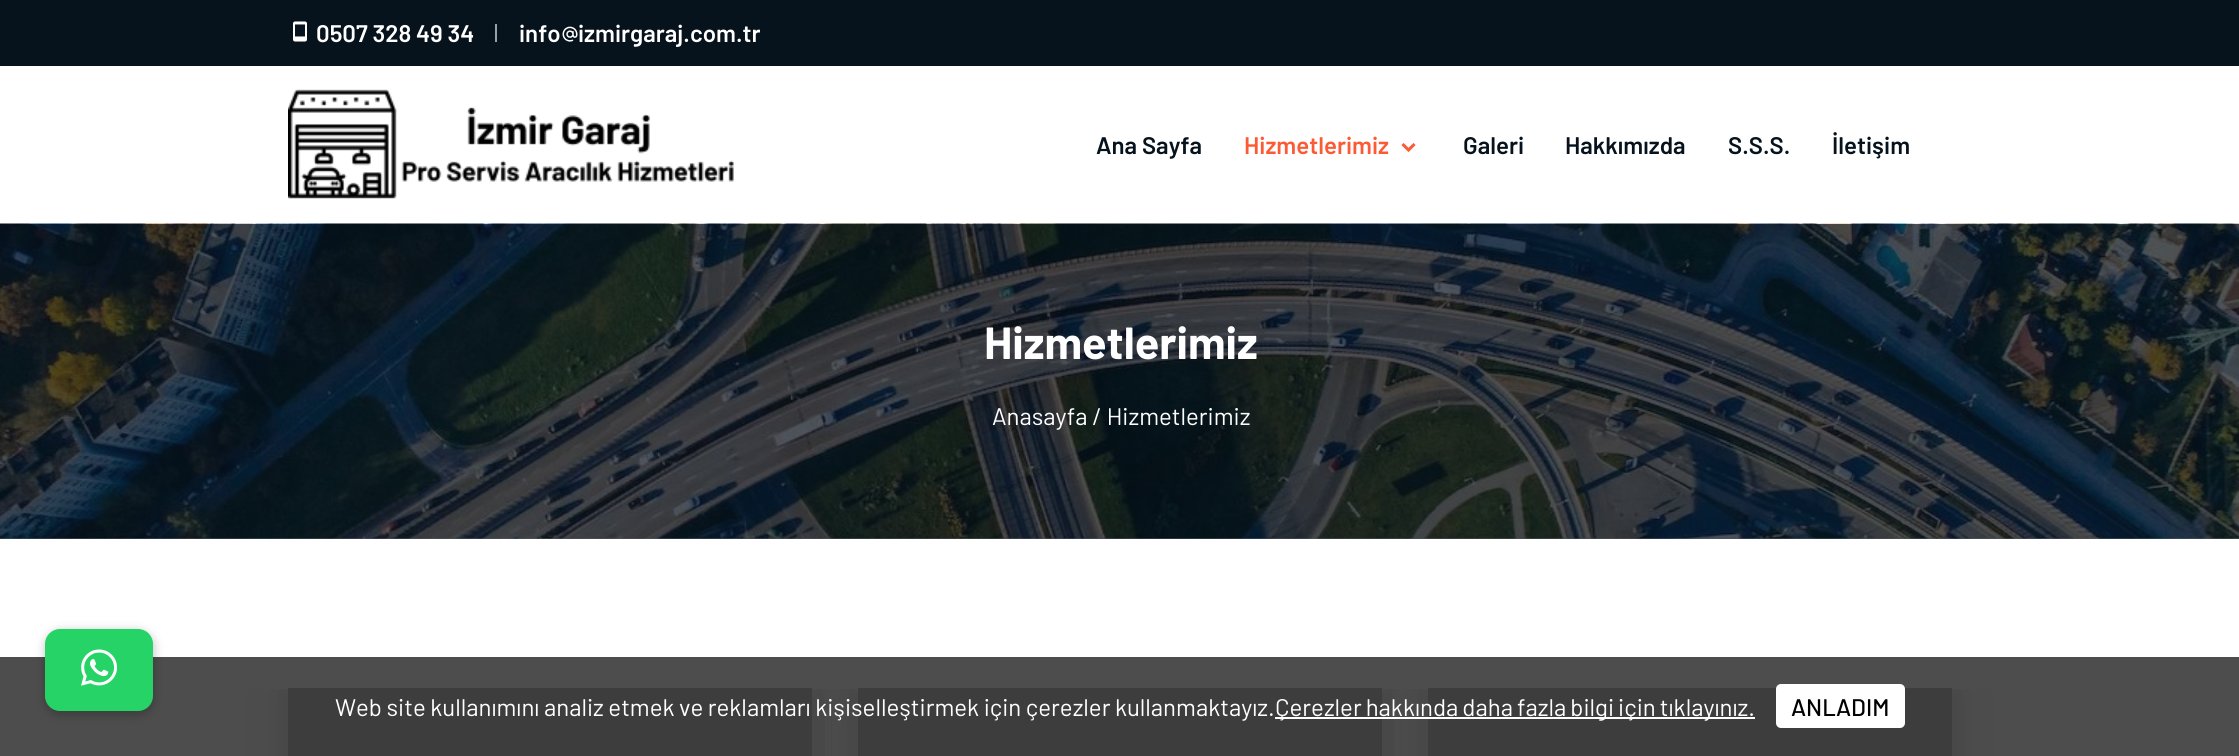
#include <cairo/cairo.h>
#include <math.h>
#include <stddef.h>

typedef struct { double x, y; const char *s; } line_t;
typedef struct { double x, y, w, h; unsigned color; } box_t;
static cairo_t *cr;

static void rgb(unsigned color)
{
	cairo_set_source_rgb(cr, (color >> 16) / 255.0, (color >> 8 & 255) / 255.0, (color & 255) / 255.0);
}

static void tracked(double x, double y, const char *s, double letter, double word)
{
	cairo_move_to(cr, x, y);
	while (*s) {
		char ch[5] = {0};
		int n = 0;
		do ch[n++] = *s++; while ((*s & 0xC0) == 0x80);
		cairo_show_text(cr, ch);
		cairo_rel_move_to(cr, letter + word * (*ch == ' '), 0);
	}
}

static void rrect(double x, double y, double w, double h, double r)
{
	cairo_new_sub_path(cr);
	cairo_arc(cr, x + w - r, y + h - r, r, 0, M_PI / 2);
	cairo_arc(cr, x + r, y + h - r, r, M_PI / 2, M_PI);
	cairo_arc(cr, x + r, y + r, r, M_PI, 1.5 * M_PI);
	cairo_arc(cr, x + w - r, y + r, r, 1.5 * M_PI, 2 * M_PI);
	cairo_close_path(cr);
}

static void soft_shadow(double x, double y, double w, double h, double r, double blur, double alpha)
{
	cairo_push_group_with_content(cr, CAIRO_CONTENT_ALPHA);
	cairo_set_operator(cr, CAIRO_OPERATOR_SOURCE);
	for (int i = 15; i >= -15 && fmin(w, h) + blur * i / 3 > 0; i -= 2) {
		double e = blur * i / 6;
		cairo_set_source_rgba(cr, 0, 0, 0, alpha * erfc((i - 1) / 8.5) / 2);
		rrect(x - e, y - e, w + 2 * e, h + 2 * e, fmax(0, fmin(r + e + blur * .6, fmin(w, h) / 2 + e)));
		cairo_fill(cr);
	}
	cairo_pattern_t *soft = cairo_pop_group(cr);
	cairo_mask(cr, soft);
	cairo_pattern_destroy(soft);
}

static void image(const char *path, double x, double y, double w, double h)
{
	cairo_surface_t *image = cairo_image_surface_create_from_png(path);
	cairo_save(cr);
	cairo_set_source_surface(cr, image, x, y);
	cairo_rectangle(cr, x, y, w, h);
	cairo_fill(cr);
	cairo_restore(cr);
	cairo_surface_destroy(image);
}

int main(void) {
	cairo_surface_t *surface = cairo_image_surface_create(CAIRO_FORMAT_RGB24, 2239, 756);
	cr = cairo_create(surface);
	cairo_font_options_t *options = cairo_font_options_create();
	cairo_font_options_set_hint_metrics(options, CAIRO_HINT_METRICS_OFF);
	cairo_font_options_set_hint_style(options, CAIRO_HINT_STYLE_NONE);
	cairo_set_font_options(cr, options);
	cairo_set_miter_limit(cr, 4);
	rgb(0xffffff);
	cairo_paint(cr);
	{
		static const box_t items[] = {
			{0, 657, 2239, 99, 0x4d4d4d},
			{0, 538, 2239, 1, 0x515960},
			{0, 0, 2239, 66, 0x06121c},
		};
		for (size_t i = 0; i < sizeof items / sizeof *items; i++) {
			rgb(items[i].color);
			cairo_rectangle(cr, items[i].x, items[i].y, items[i].w, items[i].h);
			cairo_fill(cr);
		}
	}
	image("img/1.png", 293, 21, 14, 21);
	rgb(0x9ba0a4);
	cairo_rectangle(cr, 495, 24, 2, 18);
	cairo_fill(cr);
	image("img/2.png", 562, 26, 16, 16);
	image("img/3.png", 288, 89, 446, 110);
	image("img/4.png", 1401, 143, 15, 9);
	image("img/5.png", 0, 223, 2239, 316);
	rgb(0x000000);
	soft_shadow(44, 630, 111, 86, 17, 4.5, 0.2);
	rgb(0x25d366);
	rrect(45, 629, 108, 82, 15);
	cairo_fill(cr);
	image("img/6.png", 81, 649, 37, 37);
	cairo_save(cr);
	cairo_rectangle(cr, 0, 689, 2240, 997);
	cairo_clip(cr);
	rgb(0x1f1f1f);
	soft_shadow(288, 689, 525, 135, 0, 22.5, 0.22);
	cairo_restore(cr);
	rgb(0x3d3d3d);
	cairo_rectangle(cr, 288, 688, 524, 68);
	cairo_fill(cr);
	cairo_save(cr);
	cairo_rectangle(cr, 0, 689, 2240, 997);
	cairo_clip(cr);
	rgb(0x1f1f1f);
	soft_shadow(858, 689, 525, 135, 0, 22.5, 0.22);
	cairo_restore(cr);
	cairo_rectangle(cr, 858, 688, 524, 68);
	cairo_fill(cr);
	cairo_save(cr);
	cairo_rectangle(cr, 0, 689, 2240, 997);
	cairo_clip(cr);
	rgb(0x1f1f1f);
	soft_shadow(1428, 689, 525, 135, 0, 22.5, 0.22);
	cairo_restore(cr);
	cairo_rectangle(cr, 1428, 688, 524, 68);
	cairo_fill(cr);
	rgb(0xffffff);
	cairo_rectangle(cr, 1275, 717, 480, 2);
	cairo_fill(cr);
	rrect(1776, 684, 129, 44, 5);
	cairo_fill(cr);
	cairo_select_font_face(cr, "Barlow SemiBold", CAIRO_FONT_SLANT_NORMAL, CAIRO_FONT_WEIGHT_NORMAL);
	cairo_set_font_size(cr, 24);
	{
		static const line_t items[] = {
			{316, 42, "0507 328 49 34"},
			{519, 42, "info"},
			{578, 42, "izmirgaraj.com.tr"},
		};
		for (size_t i = 0; i < sizeof items / sizeof *items; i++) {
			cairo_move_to(cr, items[i].x, items[i].y);
			cairo_show_text(cr, items[i].s);
		}
	}
	rgb(0x06121c);
	cairo_move_to(cr, 1096, 154);
	cairo_show_text(cr, "Ana Sayfa");
	rgb(0xfc5a34);
	cairo_move_to(cr, 1244, 154);
	cairo_show_text(cr, "Hizmetlerimiz");
	rgb(0x06121c);
	{
		static const line_t items[] = {
			{1463, 154, "Galeri"},
			{1565, 154, "Hakkımızda"},
			{1728, 154, "S.S.S."},
			{1832, 154, "İletişim"},
		};
		for (size_t i = 0; i < sizeof items / sizeof *items; i++) {
			cairo_move_to(cr, items[i].x, items[i].y);
			cairo_show_text(cr, items[i].s);
		}
	}
	cairo_select_font_face(cr, "Barlow", CAIRO_FONT_SLANT_NORMAL, CAIRO_FONT_WEIGHT_BOLD);
	cairo_set_font_size(cr, 45);
	rgb(0xffffff);
	cairo_move_to(cr, 984, 359);
	cairo_show_text(cr, "Hizmetlerimiz");
	cairo_select_font_face(cr, "Barlow", CAIRO_FONT_SLANT_NORMAL, CAIRO_FONT_WEIGHT_NORMAL);
	cairo_set_font_size(cr, 24);
	cairo_move_to(cr, 992, 425);
	cairo_show_text(cr, "Anasayfa / Hizmetlerimiz");
	tracked(335, 716, "Web site kullanımını analiz etmek ve reklamları kişiselleştirmek için çerezler kullanmaktayız.", 0, -0.25);
	tracked(1275, 716, "Çerezler hakkında daha fazla bilgi için tıklayınız.", 0, -0.75);
	cairo_select_font_face(cr, "Barlow Medium", CAIRO_FONT_SLANT_NORMAL, CAIRO_FONT_WEIGHT_NORMAL);
	rgb(0x000000);
	cairo_move_to(cr, 1791, 716);
	cairo_show_text(cr, "ANLADIM");
	cairo_surface_write_to_png(surface, "page.png");
	cairo_font_options_destroy(options);
	cairo_destroy(cr);
	cairo_surface_destroy(surface);
	return 0;
}
